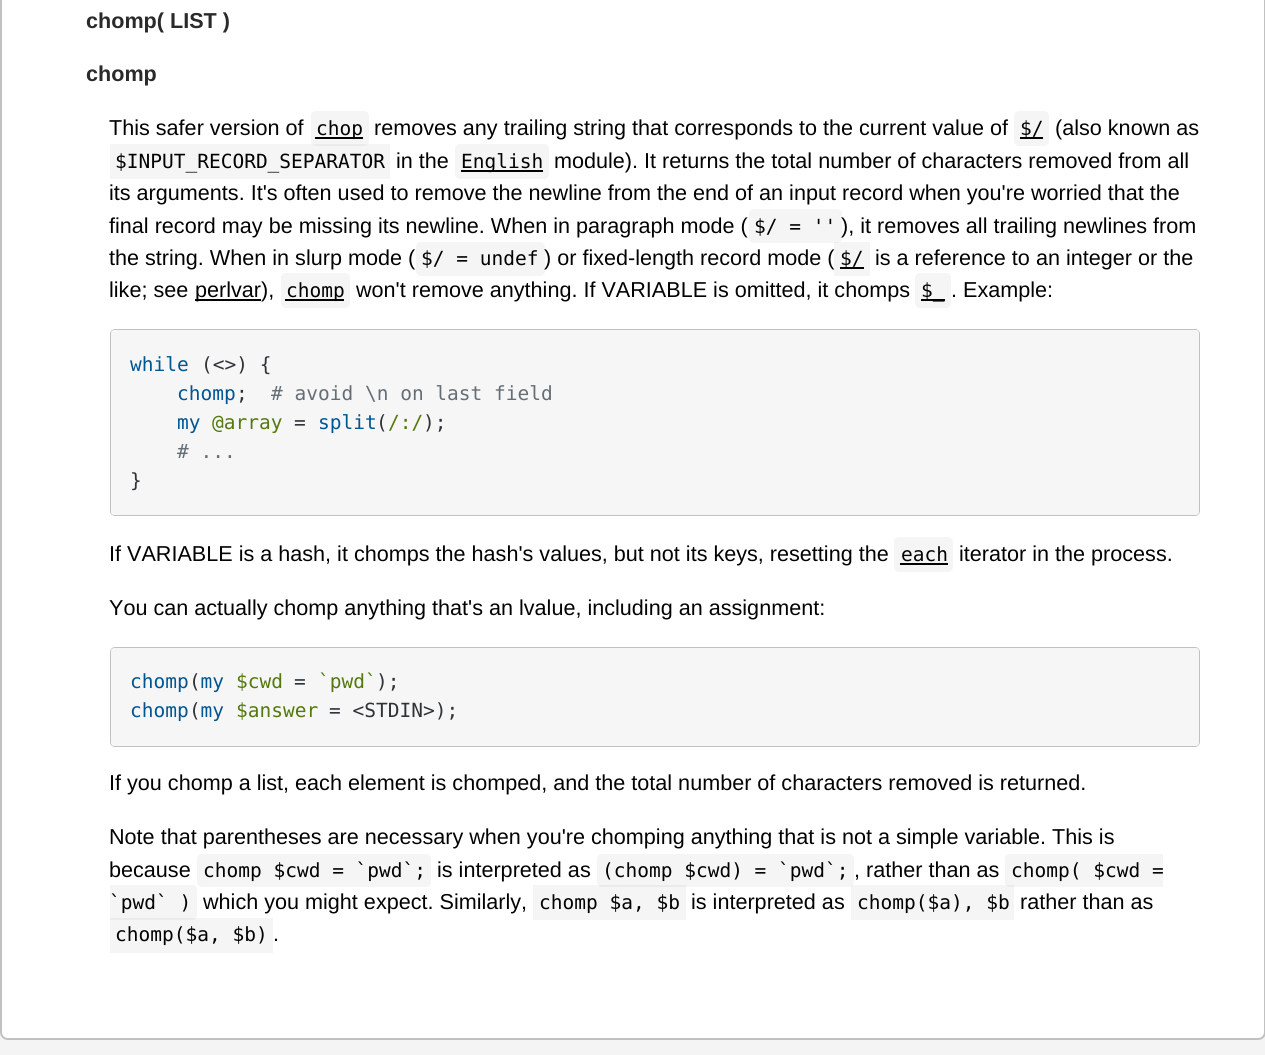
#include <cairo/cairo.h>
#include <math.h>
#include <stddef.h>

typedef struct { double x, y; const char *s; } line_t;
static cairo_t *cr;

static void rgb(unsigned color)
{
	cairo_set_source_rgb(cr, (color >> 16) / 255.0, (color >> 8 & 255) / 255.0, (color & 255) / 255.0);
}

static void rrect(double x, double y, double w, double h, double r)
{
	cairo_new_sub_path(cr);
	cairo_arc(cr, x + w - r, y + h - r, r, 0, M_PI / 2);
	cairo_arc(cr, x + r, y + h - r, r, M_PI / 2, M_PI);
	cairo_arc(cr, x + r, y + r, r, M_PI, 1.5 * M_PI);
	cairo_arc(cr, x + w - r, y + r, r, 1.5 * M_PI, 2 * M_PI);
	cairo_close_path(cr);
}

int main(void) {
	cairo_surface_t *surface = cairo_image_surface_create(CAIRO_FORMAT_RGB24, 1265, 1055);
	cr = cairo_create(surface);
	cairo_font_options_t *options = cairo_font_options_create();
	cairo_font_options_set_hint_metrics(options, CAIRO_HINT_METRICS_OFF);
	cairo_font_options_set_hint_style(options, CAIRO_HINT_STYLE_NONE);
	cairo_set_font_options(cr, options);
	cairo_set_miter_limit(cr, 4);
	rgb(0xf4f4f5);
	cairo_paint(cr);
	rgb(0xffffff);
	cairo_new_path(cr);
	cairo_move_to(cr, 1, -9);
	cairo_line_to(cr, 1265, -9);
	cairo_line_to(cr, 1265, 1032);
	cairo_curve_to(cr, 1265, 1036, 1262, 1039, 1258, 1039);
	cairo_line_to(cr, 8, 1039);
	cairo_curve_to(cr, 4, 1039, 1, 1036, 1, 1032);
	cairo_close_path(cr);
	cairo_fill_preserve(cr);
	rgb(0xc1c1c1);
	cairo_stroke(cr);
	rgb(0xf5f5f5);
	rrect(311, 111, 58, 35, 5);
	cairo_fill(cr);
	rgb(0x020202);
	cairo_rectangle(cr, 315, 137, 48, 2);
	cairo_fill(cr);
	rgb(0xf5f5f5);
	rrect(1014, 111, 35, 35, 5);
	cairo_fill(cr);
	rgb(0x020202);
	cairo_rectangle(cr, 1020, 137, 23, 2);
	cairo_fill(cr);
	cairo_set_source_rgba(cr, 0, 0, 0, 0.04);
	cairo_rectangle(cr, 110, 144, 280, 35);
	cairo_fill(cr);
	rgb(0xf5f5f5);
	rrect(455, 144, 94, 35, 5);
	cairo_fill(cr);
	rgb(0x020202);
	cairo_rectangle(cr, 461, 170, 82, 2);
	cairo_fill(cr);
	rgb(0xf5f5f5);
	rrect(749, 209, 93, 34, 5);
	cairo_fill(cr);
	rrect(416, 242, 129, 34, 5);
	cairo_fill(cr);
	cairo_set_source_rgba(cr, 0, 0, 0, 0.04);
	cairo_rectangle(cr, 834, 242, 36, 34);
	cairo_fill(cr);
	rgb(0x020202);
	cairo_rectangle(cr, 840, 267, 24, 2);
	cairo_fill(cr);
	cairo_rectangle(cr, 195, 299, 66, 2);
	cairo_fill(cr);
	rgb(0xf5f5f5);
	rrect(281, 273, 69, 35, 5);
	cairo_fill(cr);
	rgb(0x020202);
	cairo_rectangle(cr, 285, 299, 59, 2);
	cairo_fill(cr);
	rgb(0xf5f5f5);
	rrect(915, 273, 36, 35, 5);
	cairo_fill(cr);
	rgb(0x020202);
	cairo_rectangle(cr, 921, 299, 24, 2);
	cairo_fill(cr);
	rrect(111, 330, 1088, 185, 4);
	rgb(0xc1c1c1);
	cairo_stroke(cr);
	rgb(0xf6f6f6);
	rrect(111, 330, 1088, 185, 3);
	cairo_fill(cr);
	rgb(0xf5f5f5);
	rrect(894, 537, 59, 35, 5);
	cairo_fill(cr);
	rgb(0x020202);
	cairo_rectangle(cr, 900, 563, 48, 2);
	cairo_fill(cr);
	rrect(111, 648, 1088, 98, 4);
	rgb(0xc1c1c1);
	cairo_stroke(cr);
	rgb(0xf6f6f6);
	rrect(111, 648, 1088, 98, 3);
	cairo_fill(cr);
	rgb(0xf5f5f5);
	rrect(197, 854, 234, 33, 5);
	cairo_fill(cr);
	rrect(597, 854, 257, 33, 5);
	cairo_fill(cr);
	cairo_new_path(cr);
	cairo_move_to(cr, 1010, 854);
	cairo_line_to(cr, 1163, 854);
	cairo_line_to(cr, 1163, 887);
	cairo_line_to(cr, 1010, 887);
	cairo_curve_to(cr, 1007, 887, 1005, 885, 1005, 882);
	cairo_line_to(cr, 1005, 859);
	cairo_curve_to(cr, 1005, 856, 1007, 854, 1010, 854);
	cairo_close_path(cr);
	cairo_fill(cr);
	cairo_new_path(cr);
	cairo_move_to(cr, 110, 885);
	cairo_line_to(cr, 192, 885);
	cairo_curve_to(cr, 195, 885, 197, 887, 197, 890);
	cairo_line_to(cr, 197, 915);
	cairo_curve_to(cr, 197, 918, 195, 920, 192, 920);
	cairo_line_to(cr, 110, 920);
	cairo_close_path(cr);
	cairo_fill(cr);
	cairo_set_source_rgba(cr, 0, 0, 0, 0.04);
	cairo_rectangle(cr, 533, 885, 153, 35);
	cairo_fill(cr);
	cairo_rectangle(cr, 851, 885, 163, 35);
	cairo_fill(cr);
	cairo_rectangle(cr, 110, 918, 163, 35);
	cairo_fill(cr);
	cairo_select_font_face(cr, "Liberation Sans", CAIRO_FONT_SLANT_NORMAL, CAIRO_FONT_WEIGHT_BOLD);
	cairo_set_font_size(cr, 21.6);
	rgb(0x2a2a2a);
	cairo_move_to(cr, 86, 28);
	cairo_show_text(cr, "chomp( LIST )");
	cairo_move_to(cr, 86, 81);
	cairo_show_text(cr, "chomp");
	cairo_select_font_face(cr, "Liberation Sans", CAIRO_FONT_SLANT_NORMAL, CAIRO_FONT_WEIGHT_NORMAL);
	rgb(0x020202);
	cairo_move_to(cr, 109, 135);
	cairo_show_text(cr, "This safer version of");
	cairo_select_font_face(cr, "DejaVu Sans Mono", CAIRO_FONT_SLANT_NORMAL, CAIRO_FONT_WEIGHT_NORMAL);
	cairo_set_font_size(cr, 19.5);
	cairo_move_to(cr, 316, 135);
	cairo_show_text(cr, "chop");
	cairo_select_font_face(cr, "Liberation Sans", CAIRO_FONT_SLANT_NORMAL, CAIRO_FONT_WEIGHT_NORMAL);
	cairo_set_font_size(cr, 21.6);
	cairo_move_to(cr, 374, 135);
	cairo_show_text(cr, "removes any trailing string that corresponds to the current value of");
	cairo_select_font_face(cr, "DejaVu Sans Mono", CAIRO_FONT_SLANT_NORMAL, CAIRO_FONT_WEIGHT_NORMAL);
	cairo_set_font_size(cr, 19.5);
	cairo_move_to(cr, 1020, 135);
	cairo_show_text(cr, "$/");
	cairo_select_font_face(cr, "Liberation Sans", CAIRO_FONT_SLANT_NORMAL, CAIRO_FONT_WEIGHT_NORMAL);
	cairo_set_font_size(cr, 21.6);
	cairo_move_to(cr, 1055, 135);
	cairo_show_text(cr, "(also known as");
	cairo_select_font_face(cr, "DejaVu Sans Mono", CAIRO_FONT_SLANT_NORMAL, CAIRO_FONT_WEIGHT_NORMAL);
	cairo_set_font_size(cr, 19.5);
	cairo_move_to(cr, 115, 168);
	cairo_show_text(cr, "$INPUT_RECORD_SEPARATOR");
	cairo_select_font_face(cr, "Liberation Sans", CAIRO_FONT_SLANT_NORMAL, CAIRO_FONT_WEIGHT_NORMAL);
	cairo_set_font_size(cr, 21.6);
	cairo_move_to(cr, 396, 168);
	cairo_show_text(cr, "in the");
	cairo_select_font_face(cr, "DejaVu Sans Mono", CAIRO_FONT_SLANT_NORMAL, CAIRO_FONT_WEIGHT_NORMAL);
	cairo_set_font_size(cr, 19.5);
	cairo_move_to(cr, 461, 168);
	cairo_show_text(cr, "English");
	cairo_select_font_face(cr, "Liberation Sans", CAIRO_FONT_SLANT_NORMAL, CAIRO_FONT_WEIGHT_NORMAL);
	cairo_set_font_size(cr, 21.6);
	{
		static const line_t items[] = {
			{554, 168, "module). It returns the total number of characters removed from all"},
			{109, 200, "its arguments. It's often used to remove the newline from the end of an input record when you're worried that the"},
			{109, 233, "final record may be missing its newline. When in paragraph mode ("},
		};
		for (size_t i = 0; i < sizeof items / sizeof *items; i++) {
			cairo_move_to(cr, items[i].x, items[i].y);
			cairo_show_text(cr, items[i].s);
		}
	}
	cairo_select_font_face(cr, "DejaVu Sans Mono", CAIRO_FONT_SLANT_NORMAL, CAIRO_FONT_WEIGHT_NORMAL);
	cairo_set_font_size(cr, 19.5);
	cairo_move_to(cr, 754, 233);
	cairo_show_text(cr, "$/ = ''");
	cairo_select_font_face(cr, "Liberation Sans", CAIRO_FONT_SLANT_NORMAL, CAIRO_FONT_WEIGHT_NORMAL);
	cairo_set_font_size(cr, 21.6);
	cairo_move_to(cr, 841, 233);
	cairo_show_text(cr, "), it removes all trailing newlines from");
	cairo_move_to(cr, 109, 265);
	cairo_show_text(cr, "the string. When in slurp mode (");
	cairo_select_font_face(cr, "DejaVu Sans Mono", CAIRO_FONT_SLANT_NORMAL, CAIRO_FONT_WEIGHT_NORMAL);
	cairo_set_font_size(cr, 19.5);
	cairo_move_to(cr, 421, 265);
	cairo_show_text(cr, "$/ = undef");
	cairo_select_font_face(cr, "Liberation Sans", CAIRO_FONT_SLANT_NORMAL, CAIRO_FONT_WEIGHT_NORMAL);
	cairo_set_font_size(cr, 21.6);
	cairo_move_to(cr, 544, 265);
	cairo_show_text(cr, ") or fixed-length record mode (");
	cairo_select_font_face(cr, "DejaVu Sans Mono", CAIRO_FONT_SLANT_NORMAL, CAIRO_FONT_WEIGHT_NORMAL);
	cairo_set_font_size(cr, 19.5);
	cairo_move_to(cr, 840, 265);
	cairo_show_text(cr, "$/");
	cairo_select_font_face(cr, "Liberation Sans", CAIRO_FONT_SLANT_NORMAL, CAIRO_FONT_WEIGHT_NORMAL);
	cairo_set_font_size(cr, 21.6);
	{
		static const line_t items[] = {
			{875, 265, "is a reference to an integer or the"},
			{109, 297, "like; see"},
			{195, 297, "perlvar),"},
		};
		for (size_t i = 0; i < sizeof items / sizeof *items; i++) {
			cairo_move_to(cr, items[i].x, items[i].y);
			cairo_show_text(cr, items[i].s);
		}
	}
	cairo_select_font_face(cr, "DejaVu Sans Mono", CAIRO_FONT_SLANT_NORMAL, CAIRO_FONT_WEIGHT_NORMAL);
	cairo_set_font_size(cr, 19.5);
	cairo_move_to(cr, 286, 297);
	cairo_show_text(cr, "chomp");
	cairo_select_font_face(cr, "Liberation Sans", CAIRO_FONT_SLANT_NORMAL, CAIRO_FONT_WEIGHT_NORMAL);
	cairo_set_font_size(cr, 21.6);
	cairo_move_to(cr, 356, 297);
	cairo_show_text(cr, "won't remove anything. If VARIABLE is omitted, it chomps");
	cairo_select_font_face(cr, "DejaVu Sans Mono", CAIRO_FONT_SLANT_NORMAL, CAIRO_FONT_WEIGHT_NORMAL);
	cairo_set_font_size(cr, 19.5);
	cairo_move_to(cr, 921, 297);
	cairo_show_text(cr, "$_");
	cairo_select_font_face(cr, "Liberation Sans", CAIRO_FONT_SLANT_NORMAL, CAIRO_FONT_WEIGHT_NORMAL);
	cairo_set_font_size(cr, 21.6);
	cairo_move_to(cr, 951, 297);
	cairo_show_text(cr, ". Example:");
	cairo_select_font_face(cr, "DejaVu Sans Mono", CAIRO_FONT_SLANT_NORMAL, CAIRO_FONT_WEIGHT_NORMAL);
	cairo_set_font_size(cr, 19.5);
	rgb(0x015692);
	cairo_move_to(cr, 130, 371);
	cairo_show_text(cr, "while");
	rgb(0x2f3337);
	cairo_move_to(cr, 201, 371);
	cairo_show_text(cr, "(<>) {");
	rgb(0x015692);
	cairo_move_to(cr, 177, 400);
	cairo_show_text(cr, "chomp");
	rgb(0x2f3337);
	cairo_move_to(cr, 236, 400);
	cairo_show_text(cr, ";");
	rgb(0x656e77);
	cairo_move_to(cr, 271, 400);
	cairo_show_text(cr, "# avoid \\n on last field");
	rgb(0x015692);
	cairo_move_to(cr, 177, 429);
	cairo_show_text(cr, "my");
	rgb(0x54790d);
	cairo_move_to(cr, 212, 429);
	cairo_show_text(cr, "@array");
	rgb(0x2f3337);
	cairo_move_to(cr, 294, 429);
	cairo_show_text(cr, "=");
	rgb(0x015692);
	cairo_move_to(cr, 318, 429);
	cairo_show_text(cr, "split");
	rgb(0x2f3337);
	cairo_move_to(cr, 376, 429);
	cairo_show_text(cr, "(");
	rgb(0x54790d);
	cairo_move_to(cr, 388, 429);
	cairo_show_text(cr, "/:/");
	rgb(0x2f3337);
	cairo_move_to(cr, 423, 429);
	cairo_show_text(cr, ");");
	rgb(0x656e77);
	cairo_move_to(cr, 177, 458);
	cairo_show_text(cr, "# ...");
	rgb(0x2f3337);
	cairo_move_to(cr, 130, 487);
	cairo_show_text(cr, "}");
	cairo_select_font_face(cr, "Liberation Sans", CAIRO_FONT_SLANT_NORMAL, CAIRO_FONT_WEIGHT_NORMAL);
	cairo_set_font_size(cr, 21.6);
	rgb(0x020202);
	cairo_move_to(cr, 109, 561);
	cairo_show_text(cr, "If VARIABLE is a hash, it chomps the hash's values, but not its keys, resetting the");
	cairo_select_font_face(cr, "DejaVu Sans Mono", CAIRO_FONT_SLANT_NORMAL, CAIRO_FONT_WEIGHT_NORMAL);
	cairo_set_font_size(cr, 19.5);
	cairo_move_to(cr, 901, 561);
	cairo_show_text(cr, "each");
	cairo_select_font_face(cr, "Liberation Sans", CAIRO_FONT_SLANT_NORMAL, CAIRO_FONT_WEIGHT_NORMAL);
	cairo_set_font_size(cr, 21.6);
	cairo_move_to(cr, 959, 561);
	cairo_show_text(cr, "iterator in the process.");
	cairo_move_to(cr, 109, 615);
	cairo_show_text(cr, "You can actually chomp anything that's an lvalue, including an assignment:");
	cairo_select_font_face(cr, "DejaVu Sans Mono", CAIRO_FONT_SLANT_NORMAL, CAIRO_FONT_WEIGHT_NORMAL);
	cairo_set_font_size(cr, 19.5);
	rgb(0x015692);
	cairo_move_to(cr, 130, 688);
	cairo_show_text(cr, "chomp my");
	rgb(0x54790d);
	cairo_move_to(cr, 318, 688);
	cairo_show_text(cr, "`pwd`");
	rgb(0x2f3337);
	cairo_move_to(cr, 189, 688);
	cairo_show_text(cr, "(");
	rgb(0x54790d);
	cairo_move_to(cr, 236, 688);
	cairo_show_text(cr, "$cwd");
	rgb(0x2f3337);
	cairo_move_to(cr, 294, 688);
	cairo_show_text(cr, "=");
	cairo_move_to(cr, 376, 688);
	cairo_show_text(cr, ");");
	rgb(0x015692);
	cairo_move_to(cr, 130, 717);
	cairo_show_text(cr, "chomp my");
	rgb(0x2f3337);
	cairo_move_to(cr, 189, 717);
	cairo_show_text(cr, "(");
	rgb(0x54790d);
	cairo_move_to(cr, 236, 717);
	cairo_show_text(cr, "$answer");
	rgb(0x2f3337);
	cairo_move_to(cr, 329, 717);
	cairo_show_text(cr, "= <STDIN>);");
	cairo_select_font_face(cr, "Liberation Sans", CAIRO_FONT_SLANT_NORMAL, CAIRO_FONT_WEIGHT_NORMAL);
	cairo_set_font_size(cr, 21.6);
	rgb(0x020202);
	{
		static const line_t items[] = {
			{109, 790, "If you chomp a list, each element is chomped, and the total number of characters removed is returned."},
			{109, 844, "Note that parentheses are necessary when you're chomping anything that is not a simple variable. This is"},
			{109, 877, "because"},
		};
		for (size_t i = 0; i < sizeof items / sizeof *items; i++) {
			cairo_move_to(cr, items[i].x, items[i].y);
			cairo_show_text(cr, items[i].s);
		}
	}
	cairo_select_font_face(cr, "DejaVu Sans Mono", CAIRO_FONT_SLANT_NORMAL, CAIRO_FONT_WEIGHT_NORMAL);
	cairo_set_font_size(cr, 19.5);
	cairo_move_to(cr, 203, 877);
	cairo_show_text(cr, "chomp $cwd = `pwd`;");
	cairo_select_font_face(cr, "Liberation Sans", CAIRO_FONT_SLANT_NORMAL, CAIRO_FONT_WEIGHT_NORMAL);
	cairo_set_font_size(cr, 21.6);
	cairo_move_to(cr, 437, 877);
	cairo_show_text(cr, "is interpreted as");
	cairo_select_font_face(cr, "DejaVu Sans Mono", CAIRO_FONT_SLANT_NORMAL, CAIRO_FONT_WEIGHT_NORMAL);
	cairo_set_font_size(cr, 19.5);
	cairo_move_to(cr, 602, 877);
	cairo_show_text(cr, "(chomp $cwd) = `pwd`;");
	cairo_select_font_face(cr, "Liberation Sans", CAIRO_FONT_SLANT_NORMAL, CAIRO_FONT_WEIGHT_NORMAL);
	cairo_set_font_size(cr, 21.6);
	cairo_move_to(cr, 854, 877);
	cairo_show_text(cr, ", rather than as");
	cairo_select_font_face(cr, "DejaVu Sans Mono", CAIRO_FONT_SLANT_NORMAL, CAIRO_FONT_WEIGHT_NORMAL);
	cairo_set_font_size(cr, 19.5);
	cairo_move_to(cr, 1011, 877);
	cairo_show_text(cr, "chomp( $cwd =");
	cairo_move_to(cr, 109, 909);
	cairo_show_text(cr, "`pwd` )");
	cairo_select_font_face(cr, "Liberation Sans", CAIRO_FONT_SLANT_NORMAL, CAIRO_FONT_WEIGHT_NORMAL);
	cairo_set_font_size(cr, 21.6);
	cairo_move_to(cr, 203, 909);
	cairo_show_text(cr, "which you might expect. Similarly,");
	cairo_select_font_face(cr, "DejaVu Sans Mono", CAIRO_FONT_SLANT_NORMAL, CAIRO_FONT_WEIGHT_NORMAL);
	cairo_set_font_size(cr, 19.5);
	cairo_move_to(cr, 539, 909);
	cairo_show_text(cr, "chomp $a, $b");
	cairo_select_font_face(cr, "Liberation Sans", CAIRO_FONT_SLANT_NORMAL, CAIRO_FONT_WEIGHT_NORMAL);
	cairo_set_font_size(cr, 21.6);
	cairo_move_to(cr, 691, 909);
	cairo_show_text(cr, "is interpreted as");
	cairo_select_font_face(cr, "DejaVu Sans Mono", CAIRO_FONT_SLANT_NORMAL, CAIRO_FONT_WEIGHT_NORMAL);
	cairo_set_font_size(cr, 19.5);
	cairo_move_to(cr, 857, 909);
	cairo_show_text(cr, "chomp($a), $b");
	cairo_select_font_face(cr, "Liberation Sans", CAIRO_FONT_SLANT_NORMAL, CAIRO_FONT_WEIGHT_NORMAL);
	cairo_set_font_size(cr, 21.6);
	cairo_move_to(cr, 1020, 909);
	cairo_show_text(cr, "rather than as");
	cairo_select_font_face(cr, "DejaVu Sans Mono", CAIRO_FONT_SLANT_NORMAL, CAIRO_FONT_WEIGHT_NORMAL);
	cairo_set_font_size(cr, 19.5);
	cairo_move_to(cr, 115, 941);
	cairo_show_text(cr, "chomp($a, $b)");
	cairo_select_font_face(cr, "Liberation Sans", CAIRO_FONT_SLANT_NORMAL, CAIRO_FONT_WEIGHT_NORMAL);
	cairo_set_font_size(cr, 21.6);
	cairo_move_to(cr, 273, 941);
	cairo_show_text(cr, ".");
	cairo_surface_write_to_png(surface, "page.png");
	cairo_font_options_destroy(options);
	cairo_destroy(cr);
	cairo_surface_destroy(surface);
	return 0;
}
